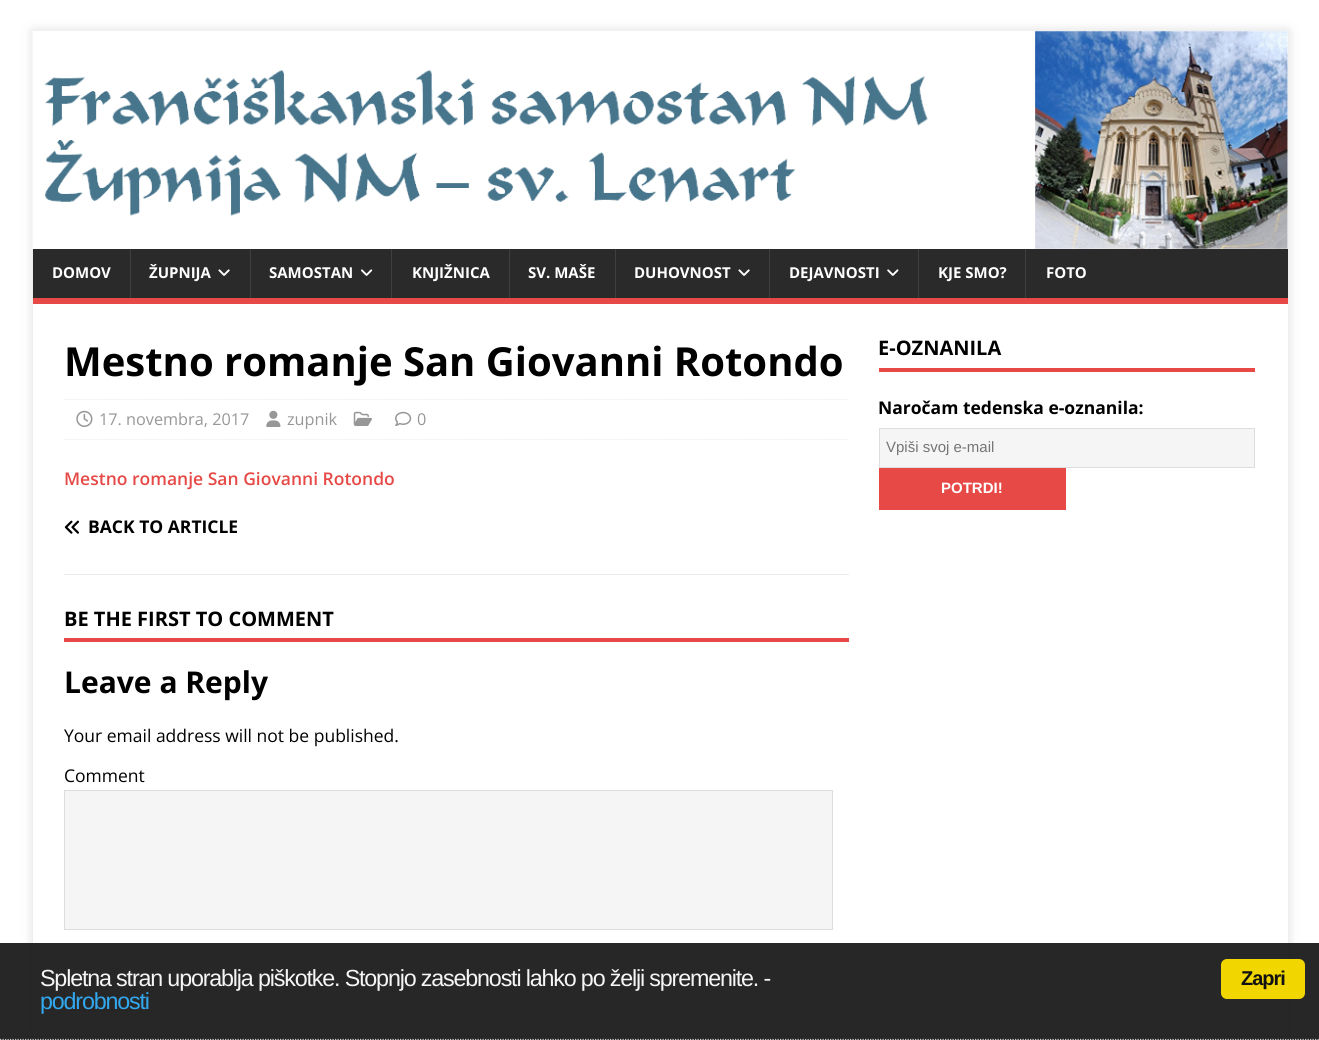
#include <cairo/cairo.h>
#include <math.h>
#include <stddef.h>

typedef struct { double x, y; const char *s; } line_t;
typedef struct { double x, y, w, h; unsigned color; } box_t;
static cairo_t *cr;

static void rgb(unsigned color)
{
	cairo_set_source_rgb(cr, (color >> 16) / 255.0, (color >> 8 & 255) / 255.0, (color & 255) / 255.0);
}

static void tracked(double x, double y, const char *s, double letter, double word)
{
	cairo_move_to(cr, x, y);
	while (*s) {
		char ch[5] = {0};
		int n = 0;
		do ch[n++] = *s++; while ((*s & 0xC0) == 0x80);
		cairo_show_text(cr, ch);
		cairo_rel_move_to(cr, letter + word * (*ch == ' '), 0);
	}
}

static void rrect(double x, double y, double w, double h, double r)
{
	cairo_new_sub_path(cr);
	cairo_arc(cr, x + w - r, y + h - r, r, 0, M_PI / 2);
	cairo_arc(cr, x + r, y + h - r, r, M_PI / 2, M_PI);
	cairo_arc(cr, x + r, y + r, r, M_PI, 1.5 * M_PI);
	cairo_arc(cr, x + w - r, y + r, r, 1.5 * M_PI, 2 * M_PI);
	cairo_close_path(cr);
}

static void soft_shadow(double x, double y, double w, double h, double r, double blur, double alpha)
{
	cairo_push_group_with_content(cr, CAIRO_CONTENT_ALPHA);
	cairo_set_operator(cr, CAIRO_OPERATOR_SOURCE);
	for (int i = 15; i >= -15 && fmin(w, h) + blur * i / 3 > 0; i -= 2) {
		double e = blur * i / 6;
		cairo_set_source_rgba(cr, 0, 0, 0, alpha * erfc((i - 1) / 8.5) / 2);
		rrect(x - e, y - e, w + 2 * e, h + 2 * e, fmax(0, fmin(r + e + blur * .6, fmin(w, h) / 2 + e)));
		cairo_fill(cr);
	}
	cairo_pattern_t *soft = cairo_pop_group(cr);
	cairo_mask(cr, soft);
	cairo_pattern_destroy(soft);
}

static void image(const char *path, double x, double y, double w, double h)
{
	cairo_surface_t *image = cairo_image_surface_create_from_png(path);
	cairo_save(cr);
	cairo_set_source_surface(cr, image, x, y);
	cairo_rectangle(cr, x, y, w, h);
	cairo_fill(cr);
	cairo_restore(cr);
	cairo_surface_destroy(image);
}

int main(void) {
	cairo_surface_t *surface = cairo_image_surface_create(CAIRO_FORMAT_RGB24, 1319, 1040);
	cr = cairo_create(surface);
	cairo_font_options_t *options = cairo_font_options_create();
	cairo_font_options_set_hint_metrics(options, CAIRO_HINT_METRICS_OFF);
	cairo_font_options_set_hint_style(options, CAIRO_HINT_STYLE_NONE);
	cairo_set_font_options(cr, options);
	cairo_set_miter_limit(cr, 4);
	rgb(0xffffff);
	cairo_paint(cr);
	rgb(0x323232);
	soft_shadow(33, 31, 1255, 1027, 0, 6, 0.17);
	rgb(0xffffff);
	cairo_rectangle(cr, 33, 31, 1255, 218);
	cairo_fill(cr);
	image("img/1.png", 32, 31, 1256, 218);
	{
		static const box_t items[] = {
			{33, 249, 1255, 49, 0x2a2a2a},
			{33, 298, 1255, 6, 0xe64946},
			{130, 249, 1, 49, 0x3f3f3f},
		};
		for (size_t i = 0; i < sizeof items / sizeof *items; i++) {
			rgb(items[i].color);
			cairo_rectangle(cr, items[i].x, items[i].y, items[i].w, items[i].h);
			cairo_fill(cr);
		}
	}
	image("img/2.png", 218, 269, 12, 7);
	cairo_rectangle(cr, 250, 249, 1, 49);
	cairo_fill(cr);
	image("img/3.png", 361, 269, 12, 7);
	{
		static const box_t items[] = {
			{391, 249, 1, 49, 0x3f3f3f},
			{509, 249, 1, 49, 0x3f3f3f},
			{615, 249, 1, 49, 0x3f3f3f},
		};
		for (size_t i = 0; i < sizeof items / sizeof *items; i++) {
			rgb(items[i].color);
			cairo_rectangle(cr, items[i].x, items[i].y, items[i].w, items[i].h);
			cairo_fill(cr);
		}
	}
	image("img/2.png", 738, 269, 12, 7);
	cairo_rectangle(cr, 769, 249, 1, 49);
	cairo_fill(cr);
	image("img/4.png", 887, 269, 12, 7);
	{
		static const box_t items[] = {
			{918, 249, 1, 49, 0x3f3f3f},
			{1025, 249, 1, 49, 0x3f3f3f},
			{33, 304, 1255, 736, 0xffffff},
		};
		for (size_t i = 0; i < sizeof items / sizeof *items; i++) {
			rgb(items[i].color);
			cairo_rectangle(cr, items[i].x, items[i].y, items[i].w, items[i].h);
			cairo_fill(cr);
		}
	}
	cairo_new_path(cr);
	cairo_move_to(cr, 64, 399.5);
	cairo_line_to(cr, 849, 399.5);
	rgb(0xebebeb);
	cairo_set_line_width(cr, 1.2);
	cairo_set_dash(cr, (double[]){1.25, 1.25}, 2, 0);
	cairo_stroke(cr);
	cairo_new_path(cr);
	cairo_move_to(cr, 64, 439.5);
	cairo_line_to(cr, 849, 439.5);
	cairo_stroke(cr);
	image("img/5.png", 76, 410, 17, 17);
	image("img/6.png", 266, 410, 15, 17);
	image("img/7.png", 353, 411, 19, 15);
	image("img/8.png", 395, 411, 17, 15);
	cairo_rectangle(cr, 64, 574, 785, 1);
	cairo_fill(cr);
	image("img/9.png", 64, 520, 15, 14);
	rgb(0xe64946);
	cairo_rectangle(cr, 64, 638, 785, 4);
	cairo_fill(cr);
	rgb(0xf5f5f5);
	cairo_rectangle(cr, 64.5, 790.5, 768, 139);
	cairo_fill_preserve(cr);
	rgb(0xdddddd);
	cairo_set_line_width(cr, 1);
	cairo_set_dash(cr, NULL, 0, 0);
	cairo_stroke(cr);
	rgb(0xf5f5f5);
	cairo_rectangle(cr, 64.5, 979.5, 485, 31);
	cairo_fill_preserve(cr);
	rgb(0xdddddd);
	cairo_stroke(cr);
	rgb(0xe64946);
	cairo_rectangle(cr, 879, 368, 376, 4);
	cairo_fill(cr);
	rgb(0xf5f5f5);
	cairo_rectangle(cr, 879.5, 428.5, 375, 39);
	cairo_fill_preserve(cr);
	rgb(0xdddddd);
	cairo_stroke(cr);
	rgb(0xe64946);
	cairo_rectangle(cr, 879, 468, 187, 42);
	cairo_fill(cr);
	cairo_set_source_rgba(cr, 0.114, 0.114, 0.114, 0.95);
	cairo_rectangle(cr, 0, 943, 1319, 97);
	cairo_fill(cr);
	cairo_new_path(cr);
	cairo_move_to(cr, 0, 1039.5);
	cairo_line_to(cr, 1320, 1039.5);
	rgb(0xcccccc);
	cairo_set_line_width(cr, 1.2);
	cairo_set_dash(cr, (double[]){1.25, 1.25}, 2, 0);
	cairo_stroke(cr);
	rgb(0xf1d600);
	rrect(1221, 959, 84, 40, 6);
	cairo_fill(cr);
	cairo_select_font_face(cr, "Open Sans", CAIRO_FONT_SLANT_NORMAL, CAIRO_FONT_WEIGHT_BOLD);
	cairo_set_font_size(cr, 15);
	rgb(0xffffff);
	{
		static const line_t items[] = {
			{52, 278, "DOMOV"},
			{149, 278, "ŽUPNIJA"},
			{269, 278, "SAMOSTAN"},
			{412, 278, "KNJIŽNICA"},
			{528, 278, "SV. MAŠE"},
			{634, 278, "DUHOVNOST"},
			{789, 278, "DEJAVNOSTI"},
			{938, 278, "KJE SMO?"},
			{1046, 278, "FOTO"},
		};
		for (size_t i = 0; i < sizeof items / sizeof *items; i++) {
			cairo_move_to(cr, items[i].x, items[i].y);
			cairo_show_text(cr, items[i].s);
		}
	}
	cairo_set_font_size(cr, 40);
	rgb(0x000000);
	cairo_move_to(cr, 64, 376);
	cairo_show_text(cr, "Mestno romanje San Giovanni Rotondo");
	cairo_select_font_face(cr, "Open Sans", CAIRO_FONT_SLANT_NORMAL, CAIRO_FONT_WEIGHT_NORMAL);
	cairo_set_font_size(cr, 16.25);
	rgb(0x979797);
	{
		static const line_t items[] = {
			{99, 425, "17. novembra, 2017"},
			{287, 425, "zupnik"},
			{417, 425, "0"},
		};
		for (size_t i = 0; i < sizeof items / sizeof *items; i++) {
			cairo_move_to(cr, items[i].x, items[i].y);
			cairo_show_text(cr, items[i].s);
		}
	}
	cairo_select_font_face(cr, "Open Sans SemiBold", CAIRO_FONT_SLANT_NORMAL, CAIRO_FONT_WEIGHT_NORMAL);
	cairo_set_font_size(cr, 17.5);
	rgb(0xe64946);
	cairo_move_to(cr, 64, 485);
	cairo_show_text(cr, "Mestno romanje San Giovanni Rotondo");
	cairo_select_font_face(cr, "Open Sans", CAIRO_FONT_SLANT_NORMAL, CAIRO_FONT_WEIGHT_BOLD);
	rgb(0x000000);
	cairo_move_to(cr, 88, 533);
	cairo_show_text(cr, "BACK TO ARTICLE");
	cairo_set_font_size(cr, 20);
	cairo_move_to(cr, 64, 626);
	cairo_show_text(cr, "BE THE FIRST TO COMMENT");
	cairo_set_font_size(cr, 30);
	cairo_move_to(cr, 64, 693);
	cairo_show_text(cr, "Leave a Reply");
	cairo_select_font_face(cr, "Open Sans", CAIRO_FONT_SLANT_NORMAL, CAIRO_FONT_WEIGHT_NORMAL);
	cairo_set_font_size(cr, 17.5);
	cairo_move_to(cr, 64, 742);
	cairo_show_text(cr, "Your email address will not be published.");
	cairo_move_to(cr, 64, 782);
	cairo_show_text(cr, "Comment");
	cairo_select_font_face(cr, "Open Sans", CAIRO_FONT_SLANT_NORMAL, CAIRO_FONT_WEIGHT_BOLD);
	cairo_set_font_size(cr, 20);
	cairo_move_to(cr, 878, 355);
	cairo_show_text(cr, "E-OZNANILA");
	cairo_set_font_size(cr, 17.5);
	cairo_move_to(cr, 878, 414);
	cairo_show_text(cr, "Naročam tedenska e-oznanila:");
	cairo_select_font_face(cr, "Liberation Sans", CAIRO_FONT_SLANT_NORMAL, CAIRO_FONT_WEIGHT_NORMAL);
	cairo_set_font_size(cr, 15);
	rgb(0x757575);
	cairo_move_to(cr, 886, 452);
	cairo_show_text(cr, "Vpiši svoj e-mail");
	cairo_select_font_face(cr, "Liberation Sans", CAIRO_FONT_SLANT_NORMAL, CAIRO_FONT_WEIGHT_BOLD);
	rgb(0xffffff);
	cairo_move_to(cr, 941, 493);
	cairo_show_text(cr, "POTRDI!");
	cairo_select_font_face(cr, "Liberation Sans", CAIRO_FONT_SLANT_NORMAL, CAIRO_FONT_WEIGHT_NORMAL);
	cairo_set_font_size(cr, 23.3);
	rgb(0xf5f5f5);
	tracked(40, 986, "Spletna stran uporablja piškotke. Stopnjo zasebnosti lahko po želji spremenite. -", -1.17, 0);
	rgb(0x31a8f0);
	tracked(40, 1009, "podrobnosti", -1.17, 0);
	cairo_select_font_face(cr, "Liberation Sans", CAIRO_FONT_SLANT_NORMAL, CAIRO_FONT_WEIGHT_BOLD);
	cairo_set_font_size(cr, 20);
	rgb(0x111111);
	tracked(1241, 985, "Zapri", -1, 0);
	cairo_surface_write_to_png(surface, "page.png");
	cairo_font_options_destroy(options);
	cairo_destroy(cr);
	cairo_surface_destroy(surface);
	return 0;
}
